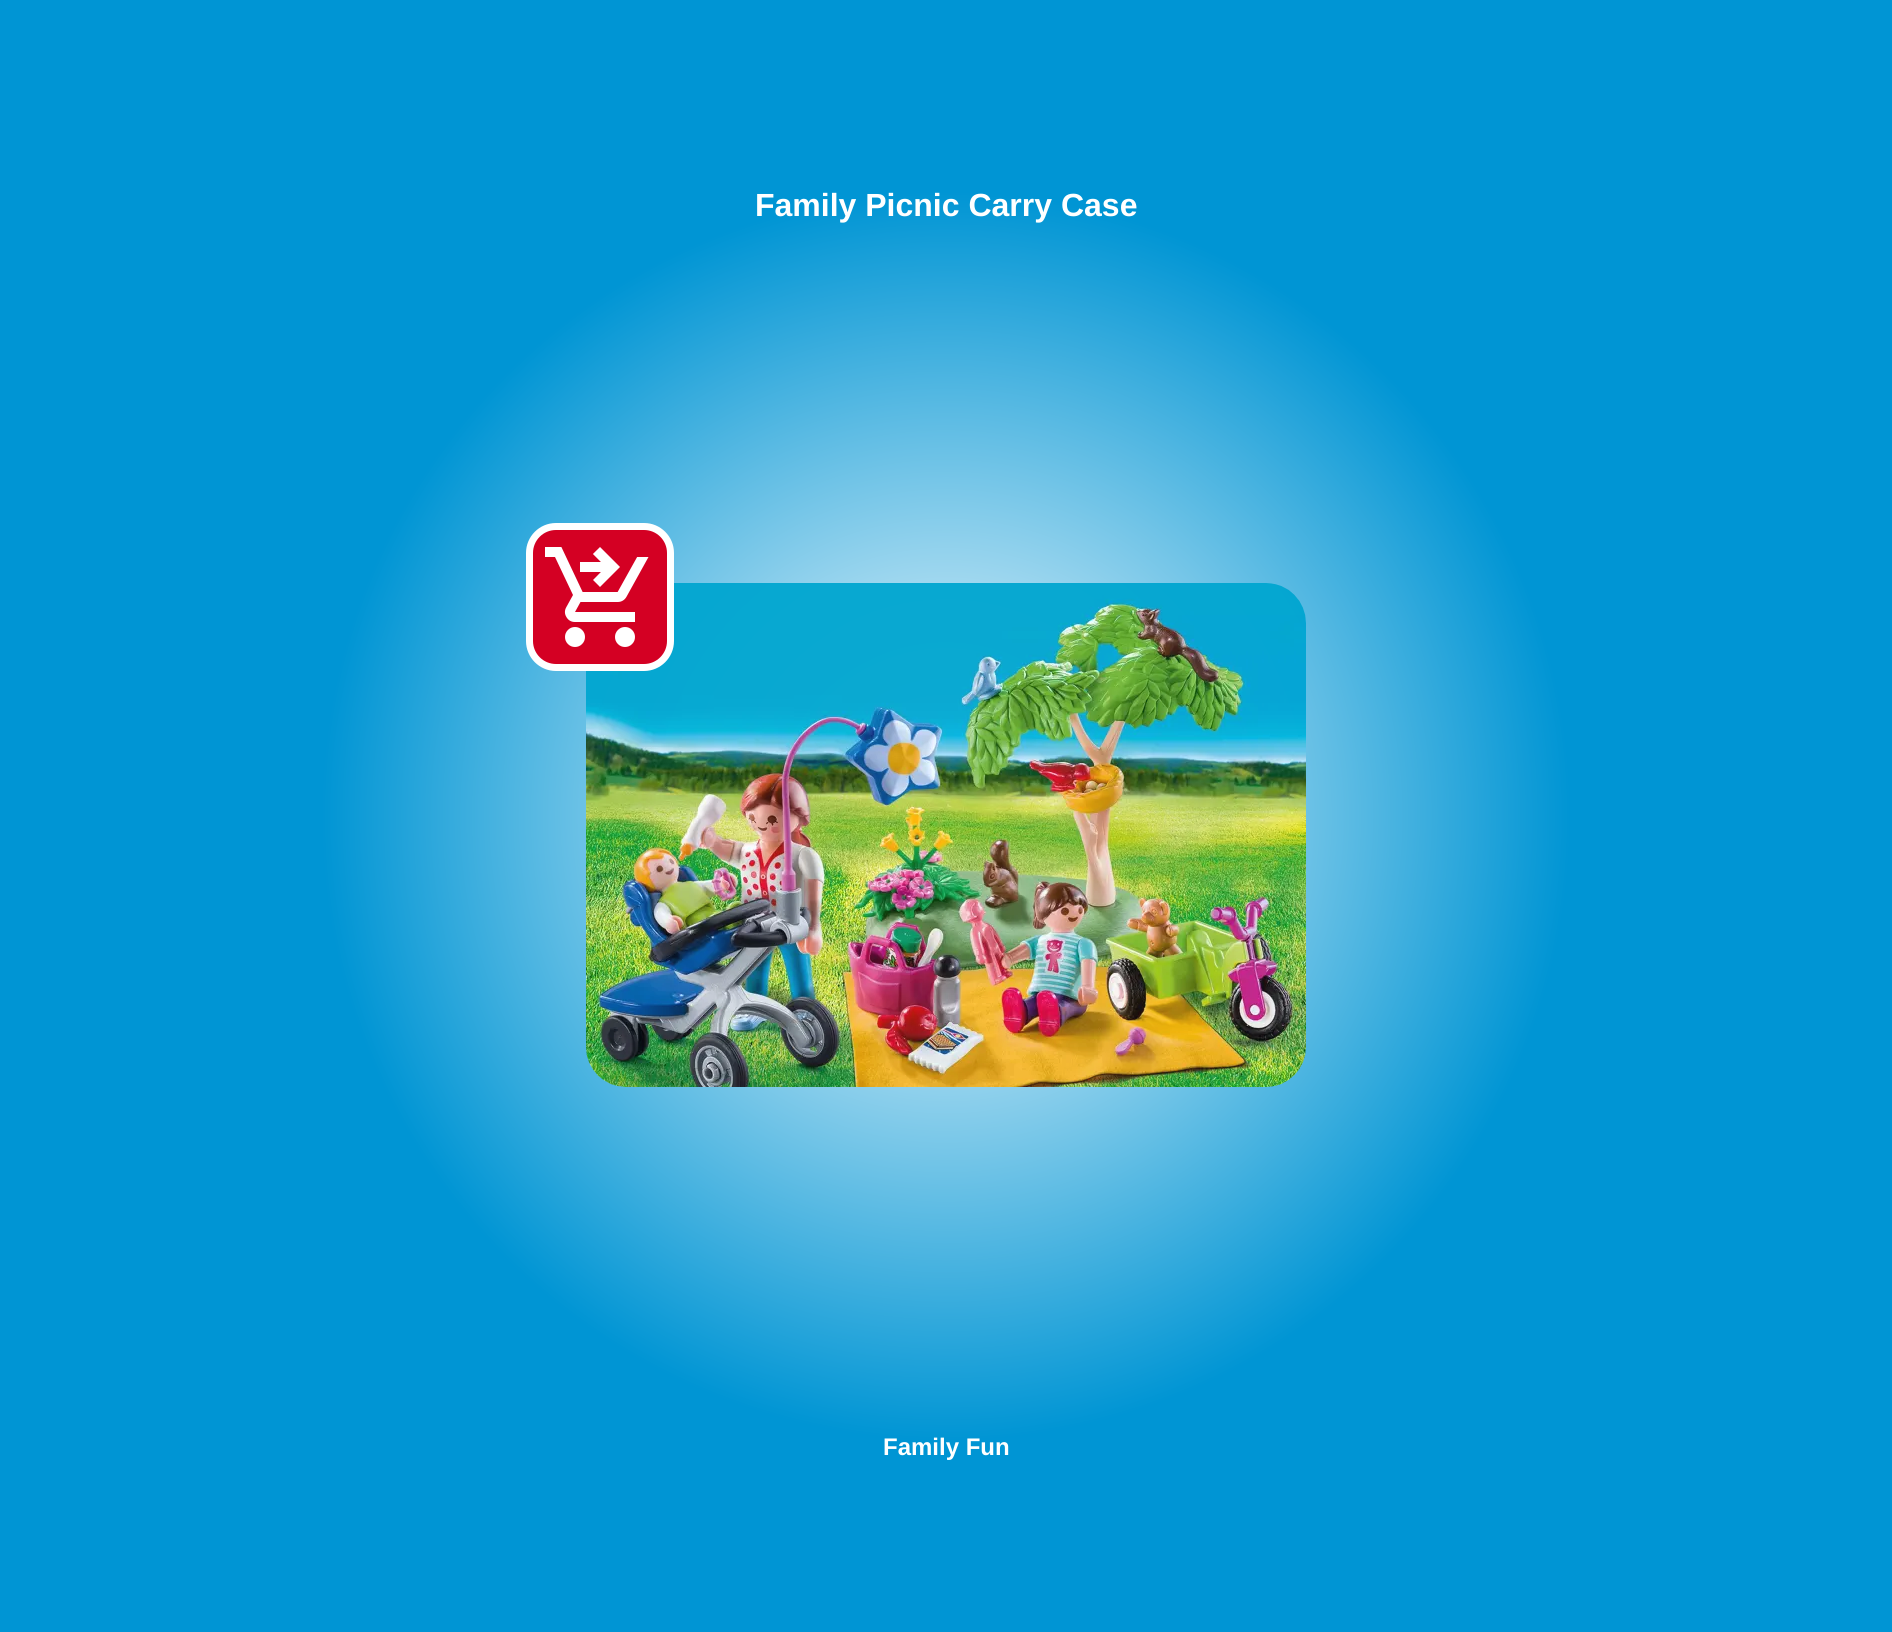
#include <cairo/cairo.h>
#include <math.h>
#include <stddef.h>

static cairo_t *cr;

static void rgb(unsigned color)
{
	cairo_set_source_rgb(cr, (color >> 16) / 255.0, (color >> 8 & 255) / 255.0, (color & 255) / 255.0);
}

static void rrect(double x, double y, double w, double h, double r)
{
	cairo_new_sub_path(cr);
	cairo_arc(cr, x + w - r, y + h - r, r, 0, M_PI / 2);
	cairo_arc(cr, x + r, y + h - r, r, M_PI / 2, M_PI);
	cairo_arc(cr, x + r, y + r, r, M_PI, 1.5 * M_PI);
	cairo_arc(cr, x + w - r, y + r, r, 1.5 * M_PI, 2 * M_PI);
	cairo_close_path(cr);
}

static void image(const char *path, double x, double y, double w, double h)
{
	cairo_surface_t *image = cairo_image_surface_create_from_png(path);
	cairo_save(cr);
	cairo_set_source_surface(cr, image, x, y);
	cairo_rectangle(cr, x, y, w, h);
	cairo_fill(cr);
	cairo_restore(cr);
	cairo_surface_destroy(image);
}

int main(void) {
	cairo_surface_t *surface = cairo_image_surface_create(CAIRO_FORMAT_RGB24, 1892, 1632);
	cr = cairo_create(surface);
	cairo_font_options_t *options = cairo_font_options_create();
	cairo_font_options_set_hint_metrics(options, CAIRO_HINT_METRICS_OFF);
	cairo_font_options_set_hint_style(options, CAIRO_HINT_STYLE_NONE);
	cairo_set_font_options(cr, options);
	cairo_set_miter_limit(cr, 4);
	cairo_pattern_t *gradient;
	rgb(0xffffff);
	cairo_paint(cr);
	gradient = cairo_pattern_create_radial(946, 816, 0, 946, 816, 1249);
	cairo_pattern_add_color_stop_rgba(gradient, 0, 1, 1, 1, 1);
	cairo_pattern_add_color_stop_rgba(gradient, 0.5, 0, 0.584, 0.831, 1);
	cairo_set_source(cr, gradient);
	cairo_pattern_destroy(gradient);
	cairo_rectangle(cr, 0, 0, 1892, 1632);
	cairo_fill(cr);
	image("img/2.png", 586, 583, 720, 504);
	rgb(0xd40023);
	rrect(529.5, 526.5, 141, 141, 26.5);
	cairo_fill_preserve(cr);
	rgb(0xffffff);
	cairo_set_line_width(cr, 7);
	cairo_stroke(cr);
	image("img/1.png", 545, 547, 104, 100);
	cairo_select_font_face(cr, "Liberation Sans", CAIRO_FONT_SLANT_NORMAL, CAIRO_FONT_WEIGHT_BOLD);
	cairo_set_font_size(cr, 32);
	cairo_move_to(cr, 755, 216);
	cairo_show_text(cr, "Family Picnic Carry Case");
	cairo_set_font_size(cr, 24);
	cairo_move_to(cr, 883, 1455);
	cairo_show_text(cr, "Family Fun");
	cairo_surface_write_to_png(surface, "page.png");
	cairo_font_options_destroy(options);
	cairo_destroy(cr);
	cairo_surface_destroy(surface);
	return 0;
}
